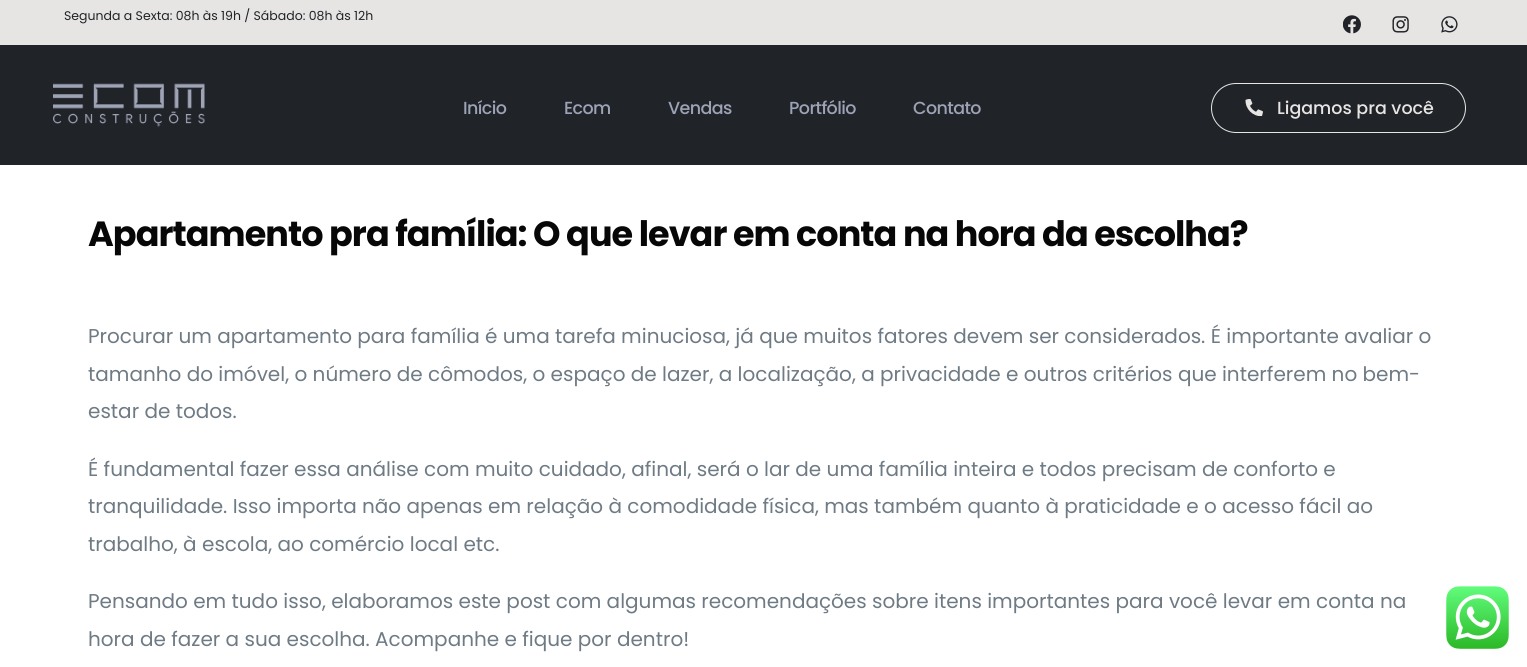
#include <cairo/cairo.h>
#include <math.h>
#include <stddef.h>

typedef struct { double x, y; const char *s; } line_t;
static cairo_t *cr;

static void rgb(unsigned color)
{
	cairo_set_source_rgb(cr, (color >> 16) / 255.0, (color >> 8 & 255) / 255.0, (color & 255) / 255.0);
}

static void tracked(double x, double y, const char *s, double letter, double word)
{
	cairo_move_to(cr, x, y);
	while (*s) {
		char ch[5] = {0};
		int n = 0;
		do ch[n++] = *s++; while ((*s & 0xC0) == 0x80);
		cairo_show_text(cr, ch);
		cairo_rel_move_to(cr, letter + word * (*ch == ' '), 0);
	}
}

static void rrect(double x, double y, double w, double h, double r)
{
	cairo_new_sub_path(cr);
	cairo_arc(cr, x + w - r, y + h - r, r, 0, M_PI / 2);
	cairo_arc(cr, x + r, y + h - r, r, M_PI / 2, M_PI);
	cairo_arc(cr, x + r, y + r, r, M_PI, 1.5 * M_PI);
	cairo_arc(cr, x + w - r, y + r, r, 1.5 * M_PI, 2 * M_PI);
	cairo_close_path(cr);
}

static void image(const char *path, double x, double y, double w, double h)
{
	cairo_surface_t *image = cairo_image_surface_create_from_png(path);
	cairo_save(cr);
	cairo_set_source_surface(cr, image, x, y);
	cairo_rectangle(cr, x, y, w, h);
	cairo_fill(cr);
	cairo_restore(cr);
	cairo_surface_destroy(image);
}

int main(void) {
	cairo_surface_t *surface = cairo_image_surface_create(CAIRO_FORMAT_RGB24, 1527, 667);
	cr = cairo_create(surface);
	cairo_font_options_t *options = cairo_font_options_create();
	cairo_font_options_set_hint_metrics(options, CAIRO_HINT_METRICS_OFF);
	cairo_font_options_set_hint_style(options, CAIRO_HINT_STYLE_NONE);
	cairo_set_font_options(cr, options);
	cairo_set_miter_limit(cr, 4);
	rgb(0xffffff);
	cairo_paint(cr);
	rgb(0xe6e5e4);
	cairo_rectangle(cr, 0, 0, 1527, 45);
	cairo_fill(cr);
	image("img/1.png", 1343, 15, 18, 19);
	image("img/2.png", 1392, 16, 17, 17);
	image("img/3.png", 1441, 16, 17, 17);
	rgb(0x202327);
	cairo_rectangle(cr, 0, 45, 1527, 120);
	cairo_fill(cr);
	image("img/4.png", 53, 83, 152, 44);
	rrect(1211.5, 83.5, 254, 49, 24.5);
	rgb(0xe6e5e4);
	cairo_set_line_width(cr, 1);
	cairo_stroke(cr);
	image("img/5.png", 1245, 99, 18, 17);
	image("img/6.png", 1446, 586, 63, 63);
	cairo_select_font_face(cr, "Poppins", CAIRO_FONT_SLANT_NORMAL, CAIRO_FONT_WEIGHT_NORMAL);
	cairo_set_font_size(cr, 12.5);
	rgb(0x202327);
	cairo_move_to(cr, 64, 20);
	cairo_show_text(cr, "Segunda a Sexta: 08h às 19h / Sábado: 08h às 12h");
	cairo_select_font_face(cr, "Poppins Medium", CAIRO_FONT_SLANT_NORMAL, CAIRO_FONT_WEIGHT_NORMAL);
	cairo_set_font_size(cr, 17.5);
	rgb(0x9da3b6);
	{
		static const line_t items[] = {
			{463, 114, "Início"},
			{564, 114, "Ecom"},
			{668, 114, "Vendas"},
			{789, 114, "Portfólio"},
			{913, 114, "Contato"},
		};
		for (size_t i = 0; i < sizeof items / sizeof *items; i++) {
			tracked(items[i].x, items[i].y, items[i].s, -0.6, 0);
		}
	}
	rgb(0xe6e5e4);
	cairo_move_to(cr, 1277, 114);
	cairo_show_text(cr, "Ligamos pra você");
	cairo_select_font_face(cr, "Poppins", CAIRO_FONT_SLANT_NORMAL, CAIRO_FONT_WEIGHT_BOLD);
	cairo_set_font_size(cr, 35);
	rgb(0x070707);
	tracked(88, 246, "Apartamento pra família: O que levar em conta na hora da escolha?", -0.95, 0);
	cairo_select_font_face(cr, "Poppins", CAIRO_FONT_SLANT_NORMAL, CAIRO_FONT_WEIGHT_NORMAL);
	cairo_set_font_size(cr, 20);
	rgb(0x6e7a84);
	{
		static const line_t items[] = {
			{88, 343, "Procurar um apartamento para família é uma tarefa minuciosa, já que muitos fatores devem ser considerados. É importante avaliar o"},
			{88, 381, "tamanho do imóvel, o número de cômodos, o espaço de lazer, a localização, a privacidade e outros critérios que interferem no bem-"},
			{88, 418, "estar de todos."},
			{88, 476, "É fundamental fazer essa análise com muito cuidado, afinal, será o lar de uma família inteira e todos precisam de conforto e"},
			{88, 513, "tranquilidade. Isso importa não apenas em relação à comodidade física, mas também quanto à praticidade e o acesso fácil ao"},
			{88, 551, "trabalho, à escola, ao comércio local etc."},
			{88, 608, "Pensando em tudo isso, elaboramos este post com algumas recomendações sobre itens importantes para você levar em conta na"},
			{88, 646, "hora de fazer a sua escolha. Acompanhe e fique por dentro!"},
		};
		for (size_t i = 0; i < sizeof items / sizeof *items; i++) {
			cairo_move_to(cr, items[i].x, items[i].y);
			cairo_show_text(cr, items[i].s);
		}
	}
	cairo_surface_write_to_png(surface, "page.png");
	cairo_font_options_destroy(options);
	cairo_destroy(cr);
	cairo_surface_destroy(surface);
	return 0;
}
